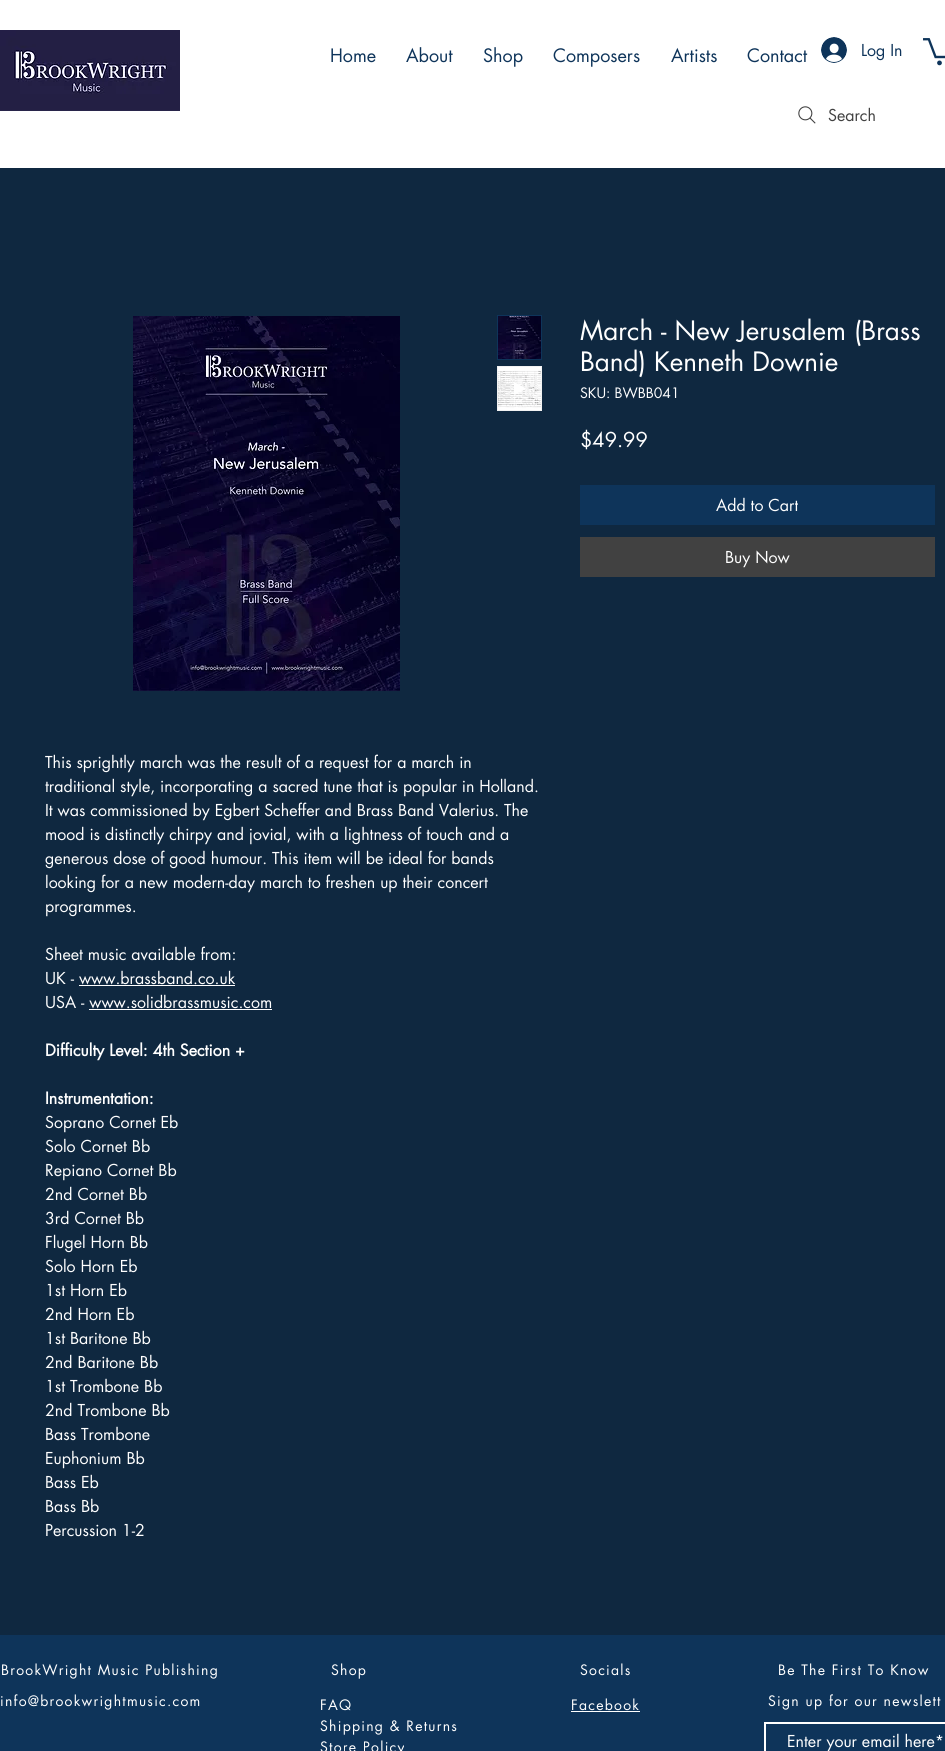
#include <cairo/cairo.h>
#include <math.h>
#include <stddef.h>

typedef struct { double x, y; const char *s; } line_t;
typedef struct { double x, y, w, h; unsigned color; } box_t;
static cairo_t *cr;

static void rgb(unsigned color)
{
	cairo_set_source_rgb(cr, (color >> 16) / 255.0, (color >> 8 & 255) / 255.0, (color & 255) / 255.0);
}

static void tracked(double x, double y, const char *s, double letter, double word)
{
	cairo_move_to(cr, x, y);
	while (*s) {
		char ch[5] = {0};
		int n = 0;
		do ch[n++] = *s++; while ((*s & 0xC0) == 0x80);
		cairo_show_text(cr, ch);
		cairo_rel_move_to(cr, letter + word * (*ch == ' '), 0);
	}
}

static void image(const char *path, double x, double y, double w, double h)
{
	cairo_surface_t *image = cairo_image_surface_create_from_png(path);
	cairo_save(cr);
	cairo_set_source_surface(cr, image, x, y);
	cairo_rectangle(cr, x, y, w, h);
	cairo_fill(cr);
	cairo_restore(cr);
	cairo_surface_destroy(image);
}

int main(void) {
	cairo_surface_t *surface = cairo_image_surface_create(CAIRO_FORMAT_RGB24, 945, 1751);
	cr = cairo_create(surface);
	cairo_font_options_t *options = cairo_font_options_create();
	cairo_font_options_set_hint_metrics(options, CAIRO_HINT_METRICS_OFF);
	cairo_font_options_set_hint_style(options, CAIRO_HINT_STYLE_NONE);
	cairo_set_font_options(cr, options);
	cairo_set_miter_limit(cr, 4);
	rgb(0x0f2840);
	cairo_paint(cr);
	rgb(0xffffff);
	cairo_rectangle(cr, 0, 0, 945, 168);
	cairo_fill(cr);
	image("img/1.png", 0, 30, 180, 81);
	image("img/2.png", 821, 37, 26, 26);
	image("img/3.png", 923, 38, 22, 28);
	image("img/4.png", 798, 106, 18, 18);
	rgb(0x0e345a);
	cairo_rectangle(cr, 580, 485, 355, 40);
	cairo_fill(cr);
	rgb(0x414141);
	cairo_rectangle(cr, 580, 537, 355, 40);
	cairo_fill(cr);
	image("img/5.png", 133, 316, 267, 375);
	cairo_rectangle(cr, 497.5, 315.5, 44, 44);
	rgb(0x0e345a);
	cairo_set_line_width(cr, 1);
	cairo_stroke(cr);
	image("img/6.png", 498, 316, 43, 43);
	rgb(0xf2f2f2);
	cairo_rectangle(cr, 497, 366, 45, 45);
	cairo_fill(cr);
	image("img/7.png", 498, 367, 43, 43);
	rgb(0xffffff);
	cairo_new_path(cr);
	cairo_move_to(cr, 514, 382);
	cairo_line_to(cr, 514, 395);
	cairo_line_to(cr, 526, 388.5);
	cairo_close_path(cr);
	cairo_fill(cr);
	{
		static const box_t items[] = {
			{79, 985, 156, 1, 0xffffff},
			{89, 1009, 183, 1, 0xffffff},
			{0, 1635, 945, 116, 0x0e345a},
			{571, 1711, 69, 1, 0xffffff},
		};
		for (size_t i = 0; i < sizeof items / sizeof *items; i++) {
			rgb(items[i].color);
			cairo_rectangle(cr, items[i].x, items[i].y, items[i].w, items[i].h);
			cairo_fill(cr);
		}
	}
	cairo_rectangle(cr, 765, 1723, 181, 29);
	cairo_set_line_width(cr, 2);
	cairo_stroke(cr);
	cairo_select_font_face(cr, "futura", CAIRO_FONT_SLANT_NORMAL, CAIRO_FONT_WEIGHT_NORMAL);
	cairo_set_font_size(cr, 18);
	rgb(0x0e345a);
	{
		static const line_t items[] = {
			{330, 62, "Home"},
			{406, 62, "About"},
			{483, 62, "Shop"},
			{553, 62, "Composers"},
			{671, 62, "Artists"},
			{747, 62, "Contact"},
		};
		for (size_t i = 0; i < sizeof items / sizeof *items; i++) {
			cairo_move_to(cr, items[i].x, items[i].y);
			cairo_show_text(cr, items[i].s);
		}
	}
	cairo_set_font_size(cr, 16);
	cairo_move_to(cr, 861, 56);
	cairo_show_text(cr, "Log In");
	rgb(0x414141);
	cairo_move_to(cr, 828, 121);
	cairo_show_text(cr, "Search");
	cairo_set_font_size(cr, 26);
	rgb(0xffffff);
	cairo_move_to(cr, 580, 340);
	cairo_show_text(cr, "March - New Jerusalem (Brass");
	cairo_move_to(cr, 580, 371);
	cairo_show_text(cr, "Band) Kenneth Downie");
	cairo_set_font_size(cr, 14);
	cairo_move_to(cr, 580, 398);
	cairo_show_text(cr, "SKU: BWBB041");
	cairo_set_font_size(cr, 20);
	cairo_move_to(cr, 580, 447);
	cairo_show_text(cr, "$49.99");
	cairo_set_font_size(cr, 16);
	{
		static const line_t items[] = {
			{716, 511, "Add to Cart"},
			{725, 563, "Buy Now"},
			{45, 768, "This sprightly march was the result of a request for a march in"},
			{45, 792, "traditional style, incorporating a sacred tune that is popular in Holland."},
			{45, 816, "It was commissioned by Egbert Scheffer and Brass Band Valerius. The"},
			{45, 840, "mood is distinctly chirpy and jovial, with a lightness of touch and a"},
			{45, 864, "generous dose of good humour. This item will be ideal for bands"},
			{45, 888, "looking for a new modern-day march to freshen up their concert"},
			{45, 912, "programmes."},
			{45, 960, "Sheet music available from:"},
			{45, 984, "UK - www.brassband.co.uk"},
			{45, 1008, "USA - www.solidbrassmusic.com"},
		};
		for (size_t i = 0; i < sizeof items / sizeof *items; i++) {
			cairo_move_to(cr, items[i].x, items[i].y);
			cairo_show_text(cr, items[i].s);
		}
	}
	cairo_select_font_face(cr, "futura", CAIRO_FONT_SLANT_NORMAL, CAIRO_FONT_WEIGHT_BOLD);
	cairo_move_to(cr, 45, 1056);
	cairo_show_text(cr, "Difficulty Level: 4th Section +");
	cairo_move_to(cr, 45, 1104);
	cairo_show_text(cr, "Instrumentation:");
	cairo_select_font_face(cr, "futura", CAIRO_FONT_SLANT_NORMAL, CAIRO_FONT_WEIGHT_NORMAL);
	{
		static const line_t items[] = {
			{45, 1128, "Soprano Cornet Eb"},
			{45, 1152, "Solo Cornet Bb"},
			{45, 1176, "Repiano Cornet Bb"},
			{45, 1200, "2nd Cornet Bb"},
			{45, 1224, "3rd Cornet Bb"},
			{45, 1248, "Flugel Horn Bb"},
			{45, 1272, "Solo Horn Eb"},
			{45, 1296, "1st Horn Eb"},
			{45, 1320, "2nd Horn Eb"},
			{45, 1344, "1st Baritone Bb"},
			{45, 1368, "2nd Baritone Bb"},
			{45, 1392, "1st Trombone Bb"},
			{45, 1416, "2nd Trombone Bb"},
			{45, 1440, "Bass Trombone"},
			{45, 1464, "Euphonium Bb"},
			{45, 1488, "Bass Eb"},
			{45, 1512, "Bass Bb"},
			{45, 1536, "Percussion 1-2"},
		};
		for (size_t i = 0; i < sizeof items / sizeof *items; i++) {
			cairo_move_to(cr, items[i].x, items[i].y);
			cairo_show_text(cr, items[i].s);
		}
	}
	cairo_set_font_size(cr, 14);
	{
		static const line_t items[] = {
			{1, 1675, "BrookWright Music Publishing"},
			{331, 1675, "Shop"},
			{580, 1675, "Socials"},
			{778, 1675, "Be The First To Know"},
			{0, 1706, "info@brookwrightmusic.com"},
			{320, 1710, "FAQ"},
			{320, 1731, "Shipping & Returns"},
			{320, 1752, "Store Policy"},
			{571, 1710, "Facebook"},
			{768, 1706, "Sign up for our newslett"},
		};
		for (size_t i = 0; i < sizeof items / sizeof *items; i++) {
			tracked(items[i].x, items[i].y, items[i].s, 1.25, 0);
		}
	}
	cairo_set_font_size(cr, 16);
	cairo_move_to(cr, 787, 1747);
	cairo_show_text(cr, "Enter your email here*");
	cairo_surface_write_to_png(surface, "page.png");
	cairo_font_options_destroy(options);
	cairo_destroy(cr);
	cairo_surface_destroy(surface);
	return 0;
}
